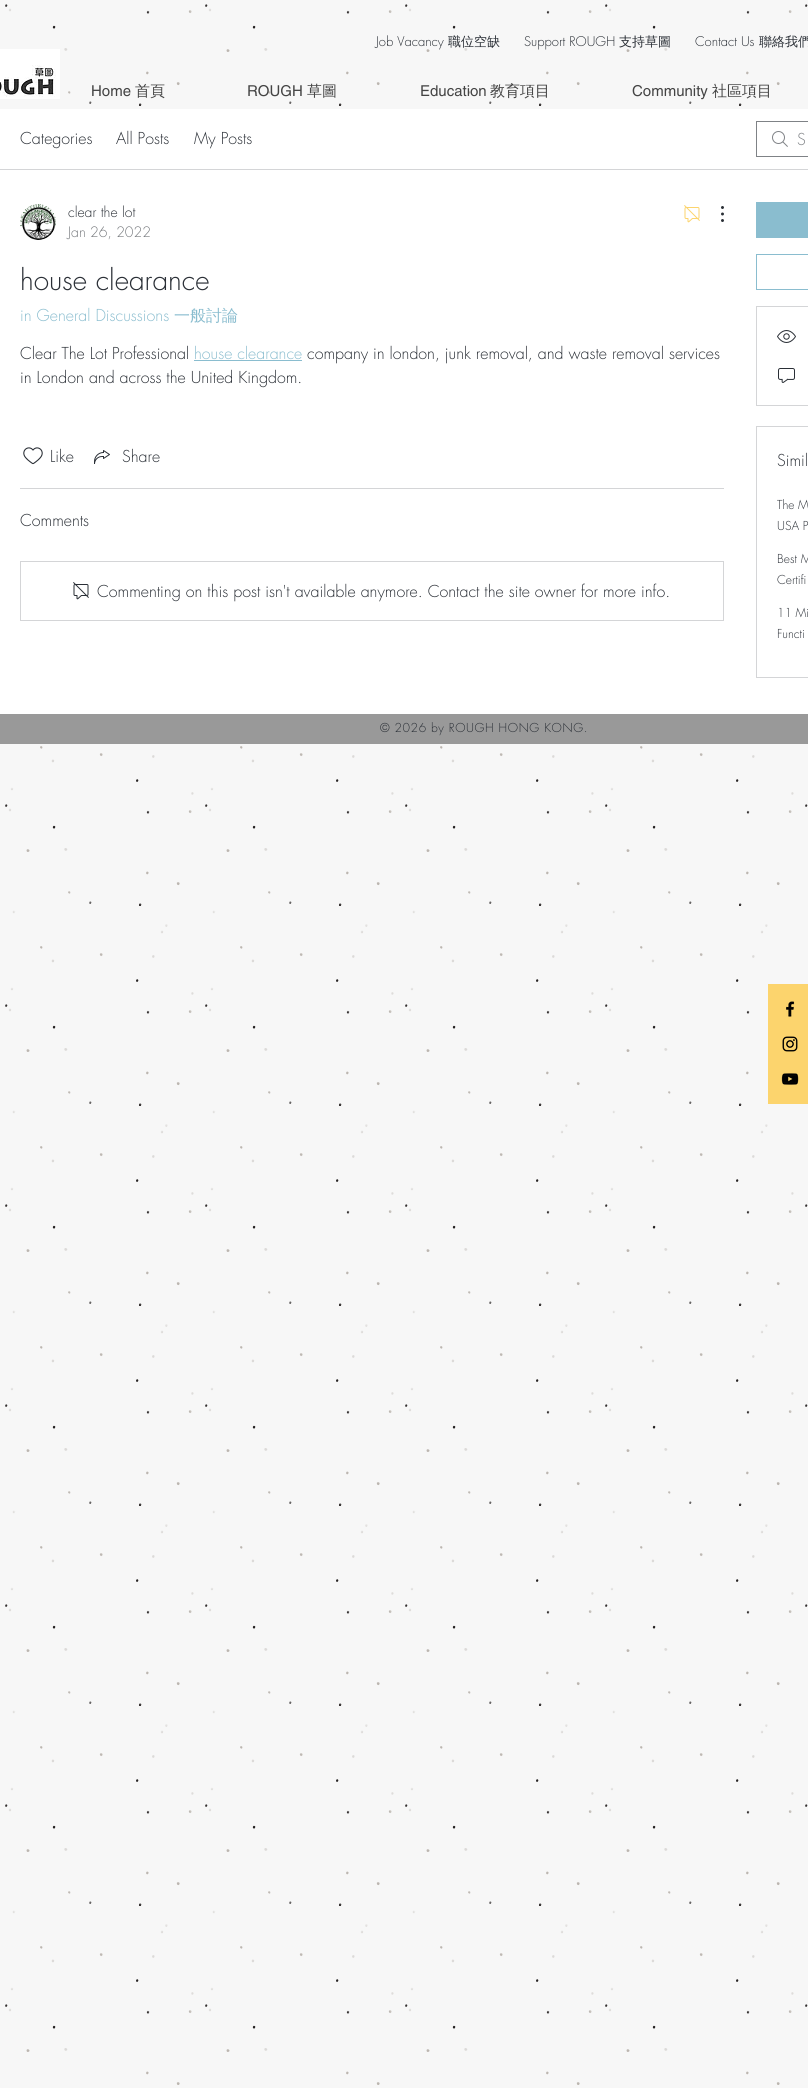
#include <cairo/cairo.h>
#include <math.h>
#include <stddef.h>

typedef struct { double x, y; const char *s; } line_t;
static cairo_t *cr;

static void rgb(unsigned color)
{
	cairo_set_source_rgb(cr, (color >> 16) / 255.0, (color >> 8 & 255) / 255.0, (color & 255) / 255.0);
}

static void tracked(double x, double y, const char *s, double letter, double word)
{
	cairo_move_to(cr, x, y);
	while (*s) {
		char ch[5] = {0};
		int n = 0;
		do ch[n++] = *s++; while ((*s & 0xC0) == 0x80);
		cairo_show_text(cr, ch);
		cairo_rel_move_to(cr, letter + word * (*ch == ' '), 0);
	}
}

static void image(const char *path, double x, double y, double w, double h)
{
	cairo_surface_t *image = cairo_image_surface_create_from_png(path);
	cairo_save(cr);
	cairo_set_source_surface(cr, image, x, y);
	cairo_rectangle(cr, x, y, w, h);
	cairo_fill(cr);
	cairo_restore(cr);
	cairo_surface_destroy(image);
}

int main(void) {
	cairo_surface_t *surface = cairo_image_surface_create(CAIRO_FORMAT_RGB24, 808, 2088);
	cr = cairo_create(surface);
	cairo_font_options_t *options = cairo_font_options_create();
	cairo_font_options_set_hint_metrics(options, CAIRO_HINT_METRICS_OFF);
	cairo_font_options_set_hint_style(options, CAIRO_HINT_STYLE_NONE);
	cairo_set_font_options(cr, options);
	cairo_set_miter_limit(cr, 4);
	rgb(0xf7f7f7);
	cairo_paint(cr);
	image("img/1.png", 5, 4, 803, 2081);
	image("img/2.png", 0, 49, 60, 50);
	rgb(0xffffff);
	cairo_rectangle(cr, 0, 109, 808, 605);
	cairo_fill(cr);
	rgb(0xd4d5d7);
	cairo_rectangle(cr, 0, 169, 808, 1);
	cairo_fill(cr);
	image("img/3.png", 772, 131, 16, 16);
	cairo_rectangle(cr, 756.5, 121.5, 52, 35);
	rgb(0x7f8286);
	cairo_set_line_width(cr, 1);
	cairo_stroke(cr);
	image("img/4.png", 20, 204, 36, 36);
	image("img/5.png", 684, 205, 16, 18);
	image("img/6.png", 721, 206, 3, 16);
	rgb(0x8abdcf);
	cairo_rectangle(cr, 194, 360, 108, 1);
	cairo_fill(cr);
	image("img/7.png", 23, 447, 20, 18);
	image("img/8.png", 94, 450, 16, 14);
	rgb(0xd4d5d7);
	cairo_rectangle(cr, 20, 488, 704, 1);
	cairo_fill(cr);
	cairo_rectangle(cr, 20.5, 561.5, 703, 59);
	cairo_stroke(cr);
	image("img/9.png", 73, 582, 16, 18);
	rgb(0x8abdcf);
	cairo_rectangle(cr, 756, 202, 52, 36);
	cairo_fill(cr);
	cairo_rectangle(cr, 756.5, 254.5, 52, 35);
	cairo_stroke(cr);
	cairo_rectangle(cr, 756.5, 306.5, 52, 99);
	rgb(0xd4d5d7);
	cairo_stroke(cr);
	image("img/10.png", 777, 330, 19, 13);
	image("img/11.png", 778, 368, 17, 15);
	cairo_rectangle(cr, 756.5, 426.5, 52, 251);
	cairo_stroke(cr);
	rgb(0x999999);
	cairo_rectangle(cr, 0, 714, 808, 30);
	cairo_fill(cr);
	rgb(0xfcd46d);
	cairo_rectangle(cr, 768, 984, 40, 120);
	cairo_fill(cr);
	image("img/12.png", 786, 1001, 9, 16);
	image("img/13.png", 782, 1036, 16, 16);
	image("img/14.png", 781, 1073, 18, 12);
	cairo_select_font_face(cr, "futura Light", CAIRO_FONT_SLANT_NORMAL, CAIRO_FONT_WEIGHT_NORMAL);
	cairo_set_font_size(cr, 13);
	rgb(0x2a2f36);
	cairo_move_to(cr, 376, 46);
	cairo_show_text(cr, "Job Vacancy");
	cairo_select_font_face(cr, "WenQuanYi Zen Hei Medium", CAIRO_FONT_SLANT_NORMAL, CAIRO_FONT_WEIGHT_NORMAL);
	cairo_move_to(cr, 448, 46);
	cairo_show_text(cr, "職位空缺");
	cairo_select_font_face(cr, "futura Light", CAIRO_FONT_SLANT_NORMAL, CAIRO_FONT_WEIGHT_NORMAL);
	cairo_move_to(cr, 524, 46);
	cairo_show_text(cr, "Support ROUGH");
	cairo_select_font_face(cr, "WenQuanYi Zen Hei Medium", CAIRO_FONT_SLANT_NORMAL, CAIRO_FONT_WEIGHT_NORMAL);
	cairo_move_to(cr, 619, 46);
	cairo_show_text(cr, "支持草圖");
	cairo_select_font_face(cr, "futura Light", CAIRO_FONT_SLANT_NORMAL, CAIRO_FONT_WEIGHT_NORMAL);
	cairo_move_to(cr, 695, 46);
	cairo_show_text(cr, "Contact Us");
	cairo_select_font_face(cr, "WenQuanYi Zen Hei Medium", CAIRO_FONT_SLANT_NORMAL, CAIRO_FONT_WEIGHT_NORMAL);
	cairo_move_to(cr, 759, 46);
	cairo_show_text(cr, "聯絡我們");
	cairo_select_font_face(cr, "helvetica", CAIRO_FONT_SLANT_NORMAL, CAIRO_FONT_WEIGHT_NORMAL);
	cairo_set_font_size(cr, 15);
	rgb(0x444444);
	cairo_move_to(cr, 91, 96);
	cairo_show_text(cr, "Home");
	cairo_select_font_face(cr, "WenQuanYi Zen Hei Medium", CAIRO_FONT_SLANT_NORMAL, CAIRO_FONT_WEIGHT_NORMAL);
	cairo_move_to(cr, 135, 96);
	cairo_show_text(cr, "首頁");
	cairo_select_font_face(cr, "helvetica", CAIRO_FONT_SLANT_NORMAL, CAIRO_FONT_WEIGHT_NORMAL);
	cairo_move_to(cr, 247, 96);
	cairo_show_text(cr, "ROUGH");
	cairo_select_font_face(cr, "WenQuanYi Zen Hei Medium", CAIRO_FONT_SLANT_NORMAL, CAIRO_FONT_WEIGHT_NORMAL);
	cairo_move_to(cr, 307, 96);
	cairo_show_text(cr, "草圖");
	cairo_select_font_face(cr, "helvetica", CAIRO_FONT_SLANT_NORMAL, CAIRO_FONT_WEIGHT_NORMAL);
	cairo_move_to(cr, 420, 96);
	cairo_show_text(cr, "Education");
	cairo_select_font_face(cr, "WenQuanYi Zen Hei Medium", CAIRO_FONT_SLANT_NORMAL, CAIRO_FONT_WEIGHT_NORMAL);
	cairo_move_to(cr, 490, 96);
	cairo_show_text(cr, "教育項目");
	cairo_select_font_face(cr, "helvetica", CAIRO_FONT_SLANT_NORMAL, CAIRO_FONT_WEIGHT_NORMAL);
	cairo_move_to(cr, 632, 96);
	cairo_show_text(cr, "Community");
	cairo_select_font_face(cr, "WenQuanYi Zen Hei Medium", CAIRO_FONT_SLANT_NORMAL, CAIRO_FONT_WEIGHT_NORMAL);
	cairo_move_to(cr, 712, 96);
	cairo_show_text(cr, "社區項目");
	cairo_select_font_face(cr, "futura Light", CAIRO_FONT_SLANT_NORMAL, CAIRO_FONT_WEIGHT_NORMAL);
	cairo_set_font_size(cr, 16);
	rgb(0x2a2f36);
	{
		static const line_t items[] = {
			{20, 144, "Categories"},
			{116, 144, "All Posts"},
			{194, 144, "My Posts"},
		};
		for (size_t i = 0; i < sizeof items / sizeof *items; i++) {
			cairo_move_to(cr, items[i].x, items[i].y);
			cairo_show_text(cr, items[i].s);
		}
	}
	rgb(0x7f8286);
	cairo_move_to(cr, 797, 145);
	cairo_show_text(cr, "S");
	cairo_set_font_size(cr, 14);
	rgb(0x2a2f36);
	cairo_move_to(cr, 68, 217);
	cairo_show_text(cr, "clear the lot");
	rgb(0x777a7e);
	cairo_move_to(cr, 68, 237);
	cairo_show_text(cr, "Jan 26, 2022");
	cairo_set_font_size(cr, 28);
	rgb(0x2a2f36);
	cairo_move_to(cr, 20, 290);
	cairo_show_text(cr, "house clearance");
	cairo_set_font_size(cr, 16);
	rgb(0x8abdcf);
	cairo_move_to(cr, 20, 321);
	cairo_show_text(cr, "in General Discussions");
	cairo_select_font_face(cr, "WenQuanYi Zen Hei Medium", CAIRO_FONT_SLANT_NORMAL, CAIRO_FONT_WEIGHT_NORMAL);
	cairo_move_to(cr, 174, 321);
	cairo_show_text(cr, "一般討論");
	cairo_select_font_face(cr, "futura Light", CAIRO_FONT_SLANT_NORMAL, CAIRO_FONT_WEIGHT_NORMAL);
	rgb(0x2a2f36);
	cairo_move_to(cr, 20, 359);
	cairo_show_text(cr, "Clear The Lot Professional");
	rgb(0x8abdcf);
	cairo_move_to(cr, 194, 359);
	cairo_show_text(cr, "house clearance");
	rgb(0x2a2f36);
	{
		static const line_t items[] = {
			{307, 359, "company in london, junk removal, and waste removal services"},
			{20, 383, "in London and across the United Kingdom."},
			{50, 462, "Like"},
			{122, 462, "Share"},
			{20, 526, "Comments"},
			{97, 597, "Commenting on this post isn't available anymore. Contact the site owner for more info."},
			{777, 466, "Simil"},
		};
		for (size_t i = 0; i < sizeof items / sizeof *items; i++) {
			cairo_move_to(cr, items[i].x, items[i].y);
			cairo_show_text(cr, items[i].s);
		}
	}
	cairo_set_font_size(cr, 12);
	{
		static const line_t items[] = {
			{777, 509, "The M"},
			{777, 530, "USA P"},
			{777, 563, "Best M"},
			{777, 584, "Certifi"},
			{777, 617, "11 Mi"},
			{777, 638, "Functi"},
		};
		for (size_t i = 0; i < sizeof items / sizeof *items; i++) {
			cairo_move_to(cr, items[i].x, items[i].y);
			cairo_show_text(cr, items[i].s);
		}
	}
	tracked(380, 732, "© 2026 by ROUGH HONG KONG.", 0.6, 0);
	cairo_surface_write_to_png(surface, "page.png");
	cairo_font_options_destroy(options);
	cairo_destroy(cr);
	cairo_surface_destroy(surface);
	return 0;
}
